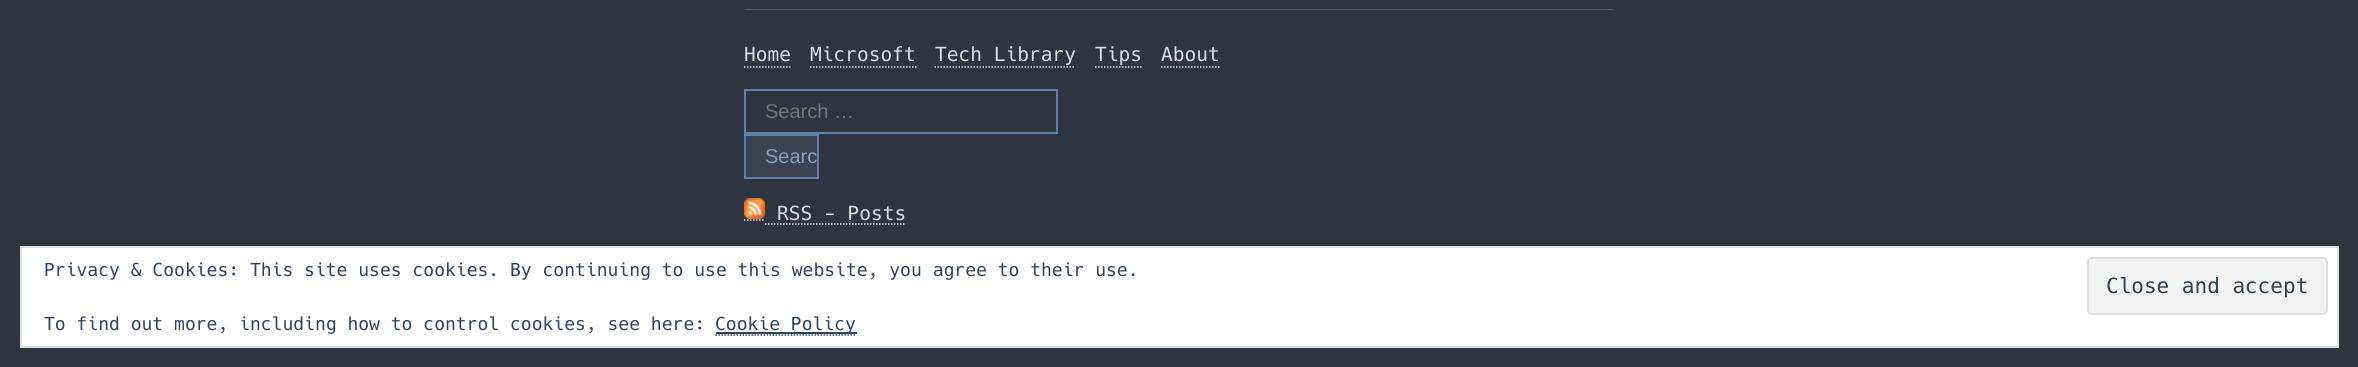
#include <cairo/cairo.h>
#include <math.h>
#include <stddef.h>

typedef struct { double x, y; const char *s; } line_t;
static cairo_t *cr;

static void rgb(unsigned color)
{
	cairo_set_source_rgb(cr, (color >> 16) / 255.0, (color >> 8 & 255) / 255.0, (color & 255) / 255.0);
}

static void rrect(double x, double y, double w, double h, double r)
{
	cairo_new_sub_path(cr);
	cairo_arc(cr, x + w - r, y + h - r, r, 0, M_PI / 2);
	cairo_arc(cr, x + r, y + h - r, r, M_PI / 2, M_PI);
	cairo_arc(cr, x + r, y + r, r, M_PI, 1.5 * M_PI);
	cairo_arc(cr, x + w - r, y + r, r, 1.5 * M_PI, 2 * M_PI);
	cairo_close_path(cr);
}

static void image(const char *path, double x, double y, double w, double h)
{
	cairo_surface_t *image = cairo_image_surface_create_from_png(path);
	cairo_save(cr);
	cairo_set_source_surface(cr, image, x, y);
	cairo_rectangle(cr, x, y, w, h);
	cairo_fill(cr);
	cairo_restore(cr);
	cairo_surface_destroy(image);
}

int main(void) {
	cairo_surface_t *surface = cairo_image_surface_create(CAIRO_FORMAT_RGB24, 2358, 367);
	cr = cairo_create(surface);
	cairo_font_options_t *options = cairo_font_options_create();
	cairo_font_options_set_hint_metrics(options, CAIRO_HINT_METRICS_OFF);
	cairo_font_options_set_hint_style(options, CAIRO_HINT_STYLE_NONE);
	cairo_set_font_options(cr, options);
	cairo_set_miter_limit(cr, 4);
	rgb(0x2e3440);
	cairo_paint(cr);
	rgb(0x4c566a);
	cairo_new_path(cr);
	cairo_move_to(cr, 744, 9);
	cairo_line_to(cr, 1614, 9);
	cairo_line_to(cr, 1612, 10);
	cairo_line_to(cr, 746, 10);
	cairo_close_path(cr);
	cairo_fill(cr);
	cairo_new_path(cr);
	cairo_move_to(cr, 744, 67);
	cairo_line_to(cr, 790.5, 67);
	rgb(0xd8dee9);
	cairo_set_line_width(cr, 1.5);
	cairo_set_dash(cr, (double[]){1.5, 1.5}, 2, 0);
	cairo_stroke(cr);
	cairo_new_path(cr);
	cairo_move_to(cr, 810, 67);
	cairo_line_to(cr, 916.5, 67);
	cairo_stroke(cr);
	cairo_new_path(cr);
	cairo_move_to(cr, 934.5, 67);
	cairo_line_to(cr, 1075.5, 67);
	cairo_stroke(cr);
	cairo_new_path(cr);
	cairo_move_to(cr, 1095, 67);
	cairo_line_to(cr, 1141.5, 67);
	cairo_stroke(cr);
	cairo_new_path(cr);
	cairo_move_to(cr, 1161, 67);
	cairo_line_to(cr, 1219.5, 67);
	cairo_stroke(cr);
	cairo_rectangle(cr, 745, 90, 312, 43);
	rgb(0x5e81ac);
	cairo_set_line_width(cr, 2);
	cairo_set_dash(cr, NULL, 0, 0);
	cairo_stroke(cr);
	rgb(0x3b4252);
	cairo_rectangle(cr, 745, 135, 73, 43);
	cairo_fill_preserve(cr);
	rgb(0x5e81ac);
	cairo_stroke(cr);
	image("img/1.png", 744, 198, 21, 21);
	cairo_new_path(cr);
	cairo_move_to(cr, 744, 220);
	cairo_line_to(cr, 765, 220);
	rgb(0xd8dee9);
	cairo_set_line_width(cr, 1.5);
	cairo_set_dash(cr, (double[]){1.5, 1.5}, 2, 0);
	cairo_stroke(cr);
	cairo_new_path(cr);
	cairo_move_to(cr, 765, 224);
	cairo_line_to(cr, 906, 224);
	cairo_stroke(cr);
	rgb(0xffffff);
	cairo_rectangle(cr, 21, 247, 2317, 100);
	cairo_fill_preserve(cr);
	rgb(0xdedede);
	cairo_set_line_width(cr, 2);
	cairo_set_dash(cr, NULL, 0, 0);
	cairo_stroke(cr);
	rgb(0xf3f3f3);
	rrect(2088, 258, 239, 56, 4);
	cairo_fill_preserve(cr);
	rgb(0xdedede);
	cairo_stroke(cr);
	cairo_new_path(cr);
	cairo_move_to(cr, 715.5, 335);
	cairo_line_to(cr, 856.5, 335);
	rgb(0x2e4467);
	cairo_set_line_width(cr, 1.5);
	cairo_set_dash(cr, (double[]){1.5, 1.5}, 2, 0);
	cairo_stroke(cr);
	cairo_rectangle(cr, 716, 332, 141, 2);
	cairo_fill(cr);
	cairo_select_font_face(cr, "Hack", CAIRO_FONT_SLANT_NORMAL, CAIRO_FONT_WEIGHT_NORMAL);
	cairo_set_font_size(cr, 19.5);
	rgb(0xd8dee9);
	{
		static const line_t items[] = {
			{744, 61, "Home"},
			{810, 61, "Microsoft"},
			{935, 61, "Tech Library"},
			{1095, 61, "Tips"},
			{1161, 61, "About"},
		};
		for (size_t i = 0; i < sizeof items / sizeof *items; i++) {
			cairo_move_to(cr, items[i].x, items[i].y);
			cairo_show_text(cr, items[i].s);
		}
	}
	cairo_select_font_face(cr, "Liberation Sans", CAIRO_FONT_SLANT_NORMAL, CAIRO_FONT_WEIGHT_NORMAL);
	cairo_set_font_size(cr, 20);
	rgb(0x757575);
	cairo_move_to(cr, 765, 118);
	cairo_show_text(cr, "Search …");
	rgb(0x81a1c1);
	cairo_move_to(cr, 765, 163);
	cairo_show_text(cr, "Searc");
	cairo_select_font_face(cr, "Hack", CAIRO_FONT_SLANT_NORMAL, CAIRO_FONT_WEIGHT_NORMAL);
	cairo_set_font_size(cr, 19.5);
	rgb(0xd8dee9);
	cairo_move_to(cr, 777, 220);
	cairo_show_text(cr, "RSS - Posts");
	cairo_set_font_size(cr, 18);
	rgb(0x2e4467);
	cairo_move_to(cr, 44, 276);
	cairo_show_text(cr, "Privacy & Cookies: This site uses cookies. By continuing to use this website, you agree to their use.");
	cairo_set_font_size(cr, 21);
	rgb(0x2e4453);
	cairo_move_to(cr, 2106, 293);
	cairo_show_text(cr, "Close and accept");
	cairo_set_font_size(cr, 18);
	rgb(0x2e4467);
	cairo_move_to(cr, 44, 330);
	cairo_show_text(cr, "To find out more, including how to control cookies, see here:");
	cairo_move_to(cr, 715, 330);
	cairo_show_text(cr, "Cookie Policy");
	cairo_surface_write_to_png(surface, "page.png");
	cairo_font_options_destroy(options);
	cairo_destroy(cr);
	cairo_surface_destroy(surface);
	return 0;
}
